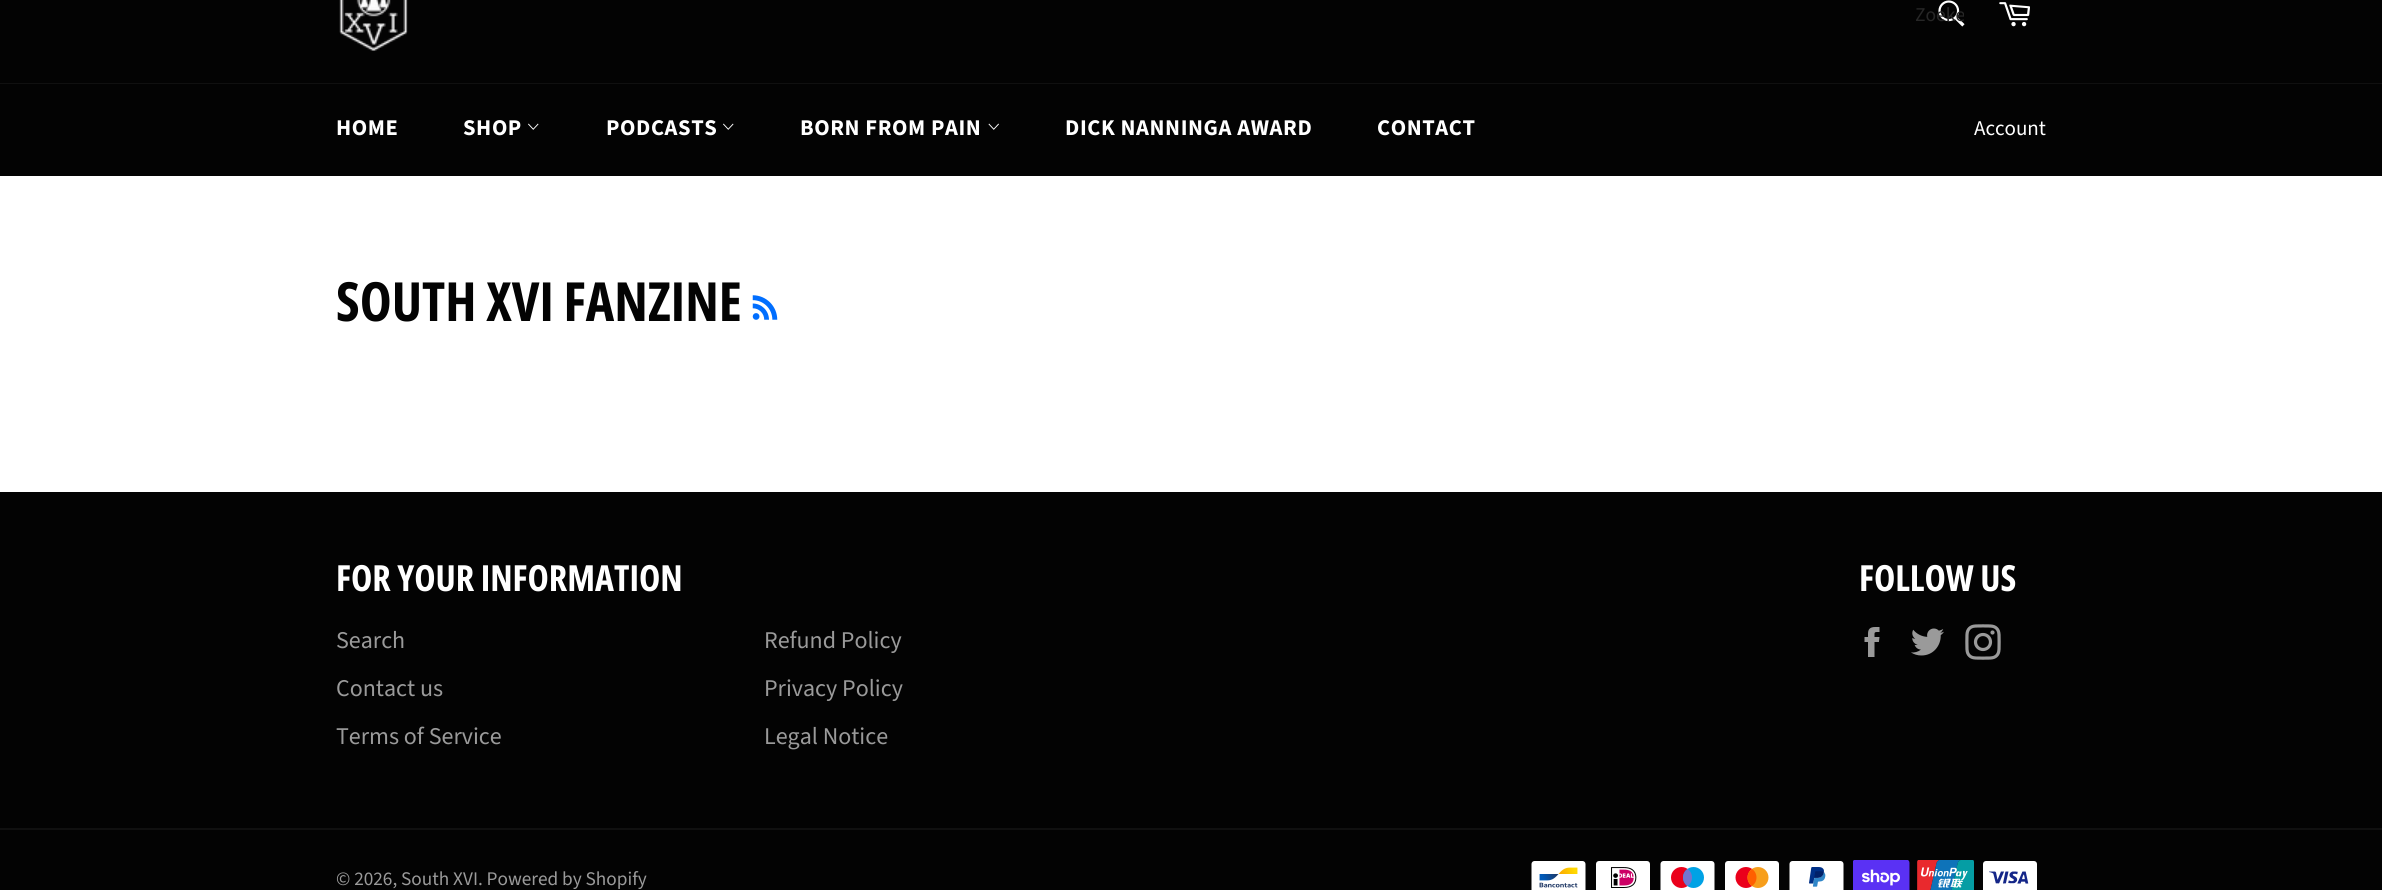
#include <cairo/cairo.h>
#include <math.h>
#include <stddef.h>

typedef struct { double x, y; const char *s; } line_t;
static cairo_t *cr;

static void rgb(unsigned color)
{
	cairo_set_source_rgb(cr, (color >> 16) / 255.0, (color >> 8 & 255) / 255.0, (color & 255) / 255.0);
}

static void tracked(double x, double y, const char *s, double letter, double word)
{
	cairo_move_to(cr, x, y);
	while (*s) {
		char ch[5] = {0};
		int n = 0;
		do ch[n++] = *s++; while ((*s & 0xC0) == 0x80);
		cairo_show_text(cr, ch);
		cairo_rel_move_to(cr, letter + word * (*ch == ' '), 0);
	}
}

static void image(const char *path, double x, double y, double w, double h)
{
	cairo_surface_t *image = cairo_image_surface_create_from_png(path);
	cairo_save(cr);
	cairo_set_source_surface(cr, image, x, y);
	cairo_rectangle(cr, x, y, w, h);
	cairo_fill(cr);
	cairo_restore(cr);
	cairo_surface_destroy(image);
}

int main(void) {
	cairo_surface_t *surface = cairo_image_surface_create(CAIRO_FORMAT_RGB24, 2382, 890);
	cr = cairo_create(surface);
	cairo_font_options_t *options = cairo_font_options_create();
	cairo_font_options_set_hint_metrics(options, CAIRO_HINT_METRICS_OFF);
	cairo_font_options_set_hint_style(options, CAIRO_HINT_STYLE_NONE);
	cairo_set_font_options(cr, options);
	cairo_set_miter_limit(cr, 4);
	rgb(0xffffff);
	cairo_paint(cr);
	rgb(0x030303);
	cairo_rectangle(cr, 0, 0, 2382, 83);
	cairo_fill(cr);
	image("img/1.png", 339, 0, 69, 51);
	image("img/2.png", 1938, 0, 27, 27);
	image("img/3.png", 1999, 2, 31, 25);
	rgb(0x101010);
	cairo_rectangle(cr, 0, 83, 2382, 1);
	cairo_fill(cr);
	rgb(0x030303);
	cairo_rectangle(cr, 0, 84, 2382, 92);
	cairo_fill(cr);
	image("img/4.png", 528, 123, 11, 7);
	image("img/4.png", 723, 123, 11, 7);
	image("img/5.png", 988, 123, 11, 7);
	image("img/6.png", 752, 295, 26, 25);
	cairo_rectangle(cr, 0, 492, 2382, 398);
	cairo_fill(cr);
	image("img/7.png", 1864, 627, 16, 30);
	image("img/8.png", 1911, 628, 33, 28);
	image("img/9.png", 1965, 624, 36, 36);
	rgb(0x101010);
	cairo_rectangle(cr, 0, 828, 2382, 2);
	cairo_fill(cr);
	image("img/10.png", 1531, 861, 55, 29);
	image("img/11.png", 1596, 861, 54, 29);
	image("img/12.png", 1660, 861, 55, 29);
	image("img/13.png", 1725, 861, 54, 29);
	image("img/14.png", 1789, 861, 55, 29);
	image("img/15.png", 1853, 860, 57, 30);
	image("img/16.png", 1917, 860, 57, 30);
	image("img/17.png", 1983, 861, 54, 29);
	cairo_save(cr);
	cairo_rectangle(cr, 1916, 2, 48, 27);
	cairo_clip(cr);
	cairo_select_font_face(cr, "Source Sans Pro", CAIRO_FONT_SLANT_NORMAL, CAIRO_FONT_WEIGHT_NORMAL);
	cairo_set_font_size(cr, 19.5);
	rgb(0x272727);
	cairo_move_to(cr, 1915, 21);
	cairo_show_text(cr, "Zoeke");
	cairo_restore(cr);
	cairo_select_font_face(cr, "Source Sans Pro", CAIRO_FONT_SLANT_NORMAL, CAIRO_FONT_WEIGHT_BOLD);
	cairo_set_font_size(cr, 22.5);
	rgb(0xffffff);
	{
		static const line_t items[] = {
			{336, 135, "HOME"},
			{463, 135, "SHOP"},
			{606, 135, "PODCASTS"},
			{800, 135, "BORN FROM PAIN"},
			{1065, 135, "DICK NANNINGA AWARD"},
			{1377, 135, "CONTACT"},
		};
		for (size_t i = 0; i < sizeof items / sizeof *items; i++) {
			tracked(items[i].x, items[i].y, items[i].s, 0.6, 0);
		}
	}
	cairo_select_font_face(cr, "Source Sans Pro", CAIRO_FONT_SLANT_NORMAL, CAIRO_FONT_WEIGHT_NORMAL);
	cairo_set_font_size(cr, 21);
	cairo_move_to(cr, 1974, 135);
	cairo_show_text(cr, "Account");
	cairo_select_font_face(cr, "Open Sans Condensed", CAIRO_FONT_SLANT_NORMAL, CAIRO_FONT_WEIGHT_BOLD);
	cairo_set_font_size(cr, 54);
	rgb(0x030303);
	cairo_move_to(cr, 336, 321);
	cairo_show_text(cr, "SOUTH XVI FANZINE");
	cairo_set_font_size(cr, 36);
	rgb(0xffffff);
	cairo_move_to(cr, 336, 591);
	cairo_show_text(cr, "FOR YOUR INFORMATION");
	cairo_select_font_face(cr, "Source Sans Pro", CAIRO_FONT_SLANT_NORMAL, CAIRO_FONT_WEIGHT_NORMAL);
	cairo_set_font_size(cr, 24);
	rgb(0x9a9a9a);
	{
		static const line_t items[] = {
			{336, 648, "Search"},
			{764, 648, "Refund Policy"},
			{336, 696, "Contact us"},
			{764, 696, "Privacy Policy"},
			{336, 744, "Terms of Service"},
			{764, 744, "Legal Notice"},
		};
		for (size_t i = 0; i < sizeof items / sizeof *items; i++) {
			cairo_move_to(cr, items[i].x, items[i].y);
			cairo_show_text(cr, items[i].s);
		}
	}
	cairo_select_font_face(cr, "Open Sans Condensed", CAIRO_FONT_SLANT_NORMAL, CAIRO_FONT_WEIGHT_BOLD);
	cairo_set_font_size(cr, 36);
	rgb(0xffffff);
	cairo_move_to(cr, 1859, 591);
	cairo_show_text(cr, "FOLLOW US");
	cairo_select_font_face(cr, "Source Sans Pro", CAIRO_FONT_SLANT_NORMAL, CAIRO_FONT_WEIGHT_NORMAL);
	cairo_set_font_size(cr, 19.25);
	rgb(0x9a9a9a);
	cairo_move_to(cr, 336, 885);
	cairo_show_text(cr, "© 2026, South XVI. Powered by Shopify");
	cairo_surface_write_to_png(surface, "page.png");
	cairo_font_options_destroy(options);
	cairo_destroy(cr);
	cairo_surface_destroy(surface);
	return 0;
}
